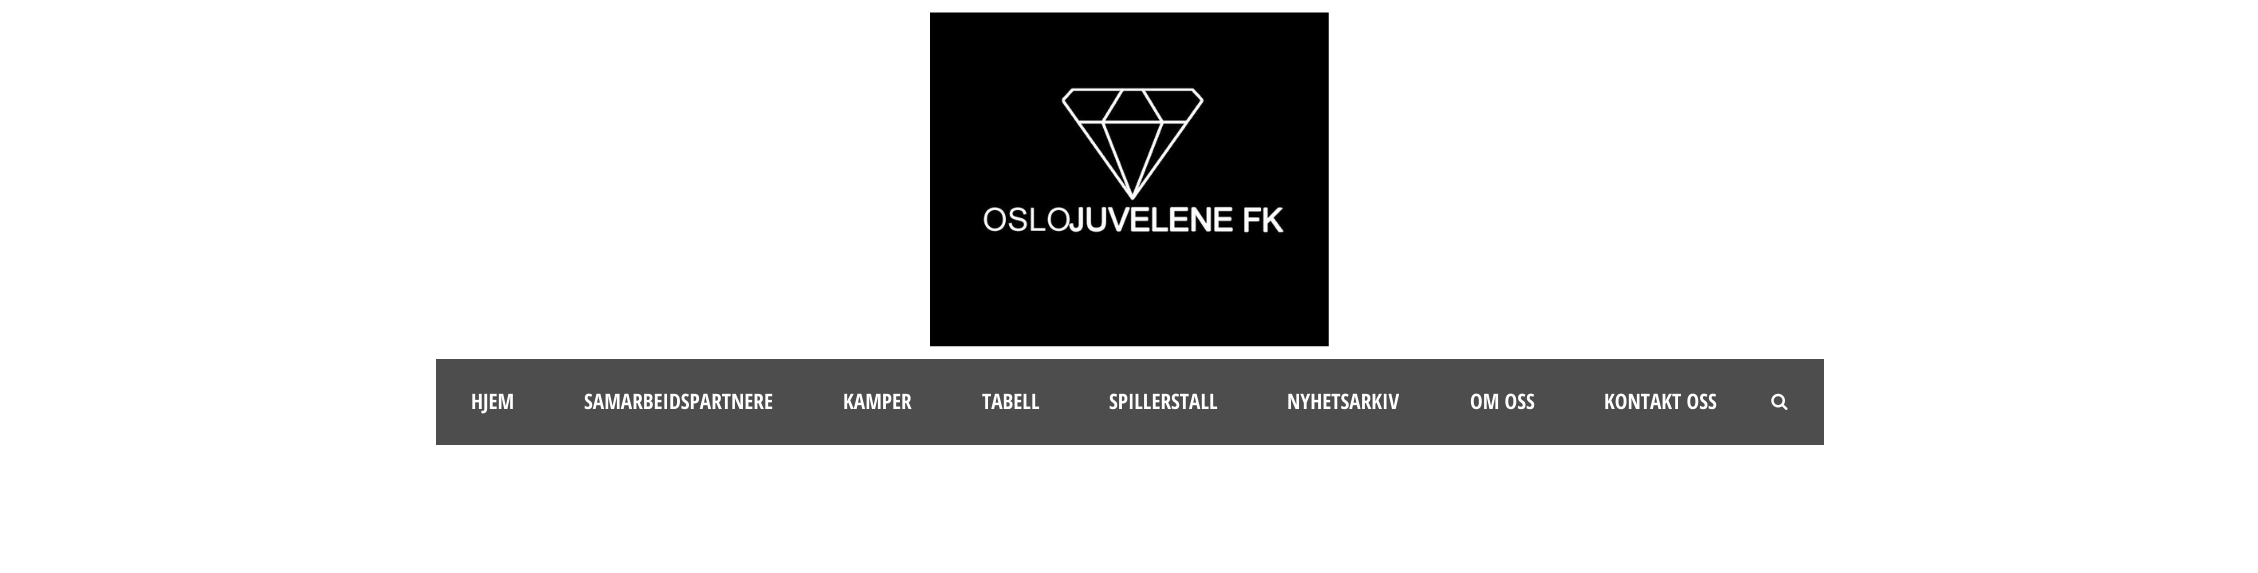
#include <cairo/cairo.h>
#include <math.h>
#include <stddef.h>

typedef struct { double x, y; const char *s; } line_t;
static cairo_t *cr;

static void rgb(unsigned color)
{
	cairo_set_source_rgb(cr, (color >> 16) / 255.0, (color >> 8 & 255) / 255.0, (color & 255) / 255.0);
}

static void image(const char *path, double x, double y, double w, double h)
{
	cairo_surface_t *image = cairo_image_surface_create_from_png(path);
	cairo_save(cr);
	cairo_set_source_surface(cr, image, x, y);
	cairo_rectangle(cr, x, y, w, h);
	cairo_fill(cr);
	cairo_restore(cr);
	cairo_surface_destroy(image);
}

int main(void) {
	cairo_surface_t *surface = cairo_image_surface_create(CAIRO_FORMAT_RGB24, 2258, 573);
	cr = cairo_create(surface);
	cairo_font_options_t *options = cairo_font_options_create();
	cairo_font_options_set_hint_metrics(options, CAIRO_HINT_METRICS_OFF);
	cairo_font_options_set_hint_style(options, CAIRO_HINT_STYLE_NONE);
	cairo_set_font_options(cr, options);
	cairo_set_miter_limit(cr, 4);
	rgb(0xffffff);
	cairo_paint(cr);
	image("img/1.png", 930, 12, 399, 335);
	rgb(0x4d4d4d);
	cairo_rectangle(cr, 436, 359, 1388, 86);
	cairo_fill(cr);
	image("img/2.png", 1771, 393, 17, 17);
	cairo_select_font_face(cr, "Open Sans Condensed", CAIRO_FONT_SLANT_NORMAL, CAIRO_FONT_WEIGHT_BOLD);
	cairo_set_font_size(cr, 21.25);
	rgb(0xffffff);
	{
		static const line_t items[] = {
			{471, 409, "HJEM"},
			{584, 409, "SAMARBEIDSPARTNERE"},
			{843, 409, "KAMPER"},
			{982, 409, "TABELL"},
			{1109, 409, "SPILLERSTALL"},
			{1287, 409, "NYHETSARKIV"},
			{1470, 409, "OM OSS"},
			{1604, 409, "KONTAKT OSS"},
		};
		for (size_t i = 0; i < sizeof items / sizeof *items; i++) {
			cairo_move_to(cr, items[i].x, items[i].y);
			cairo_show_text(cr, items[i].s);
		}
	}
	cairo_surface_write_to_png(surface, "page.png");
	cairo_font_options_destroy(options);
	cairo_destroy(cr);
	cairo_surface_destroy(surface);
	return 0;
}
